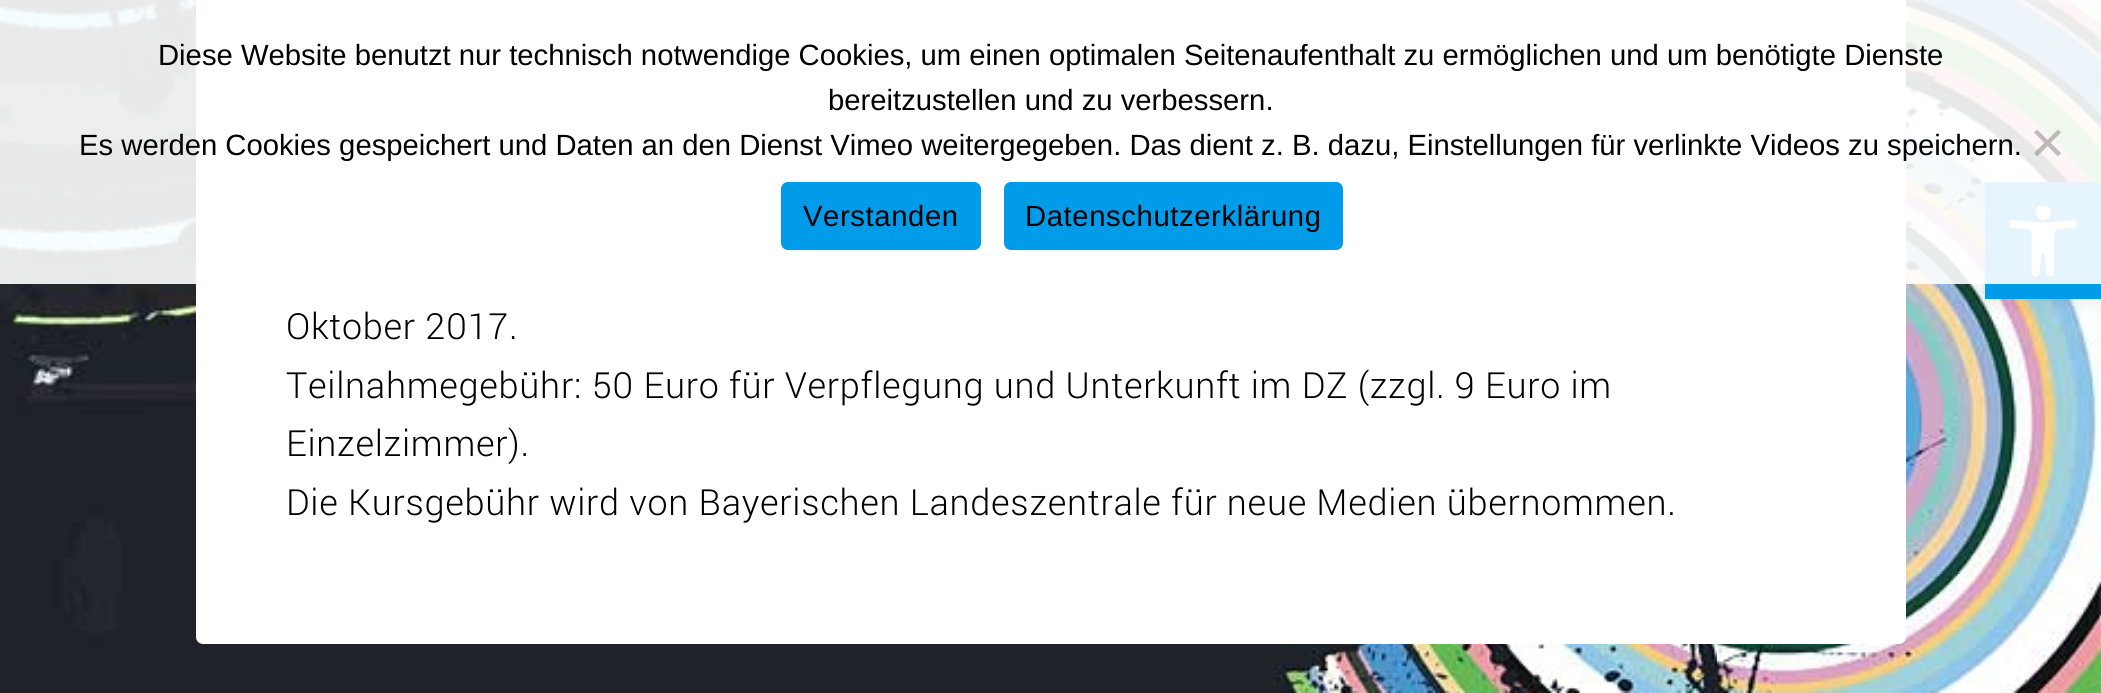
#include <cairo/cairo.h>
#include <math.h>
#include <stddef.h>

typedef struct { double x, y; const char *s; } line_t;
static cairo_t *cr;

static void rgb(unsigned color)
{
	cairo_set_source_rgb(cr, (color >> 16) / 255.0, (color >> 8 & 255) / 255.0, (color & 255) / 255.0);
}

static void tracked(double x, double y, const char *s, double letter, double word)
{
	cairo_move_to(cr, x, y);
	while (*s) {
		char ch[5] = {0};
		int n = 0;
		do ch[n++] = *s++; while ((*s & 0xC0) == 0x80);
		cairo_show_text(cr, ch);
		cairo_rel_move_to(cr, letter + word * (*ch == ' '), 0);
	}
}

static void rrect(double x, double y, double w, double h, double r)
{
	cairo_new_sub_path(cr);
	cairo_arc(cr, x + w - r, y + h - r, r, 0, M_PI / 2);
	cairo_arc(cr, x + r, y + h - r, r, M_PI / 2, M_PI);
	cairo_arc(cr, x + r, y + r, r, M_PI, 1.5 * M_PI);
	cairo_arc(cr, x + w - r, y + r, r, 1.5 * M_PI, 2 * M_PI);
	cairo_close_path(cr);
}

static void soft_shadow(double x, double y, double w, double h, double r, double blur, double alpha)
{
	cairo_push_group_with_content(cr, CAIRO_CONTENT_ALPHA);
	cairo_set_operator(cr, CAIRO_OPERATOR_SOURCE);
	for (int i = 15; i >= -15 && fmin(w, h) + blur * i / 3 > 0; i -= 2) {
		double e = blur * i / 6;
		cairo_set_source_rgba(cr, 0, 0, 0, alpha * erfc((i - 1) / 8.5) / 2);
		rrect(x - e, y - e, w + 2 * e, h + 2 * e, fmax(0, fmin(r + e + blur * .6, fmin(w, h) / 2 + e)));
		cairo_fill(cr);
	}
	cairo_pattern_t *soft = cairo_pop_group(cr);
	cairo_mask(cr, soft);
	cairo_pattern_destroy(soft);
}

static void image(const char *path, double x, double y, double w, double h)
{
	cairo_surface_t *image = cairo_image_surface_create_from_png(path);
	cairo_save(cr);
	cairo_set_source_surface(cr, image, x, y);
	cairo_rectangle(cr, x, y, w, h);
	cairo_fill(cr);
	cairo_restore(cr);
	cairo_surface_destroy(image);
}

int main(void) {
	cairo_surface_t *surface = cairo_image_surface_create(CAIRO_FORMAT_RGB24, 2101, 693);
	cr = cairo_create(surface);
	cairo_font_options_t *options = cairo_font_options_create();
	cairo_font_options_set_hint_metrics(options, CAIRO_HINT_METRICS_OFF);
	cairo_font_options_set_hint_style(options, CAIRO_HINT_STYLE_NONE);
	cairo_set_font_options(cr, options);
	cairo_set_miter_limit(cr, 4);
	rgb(0xffffff);
	cairo_paint(cr);
	image("img/1.png", 0, 0, 2101, 693);
	rgb(0x000000);
	soft_shadow(1985, 182, 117, 117, 0, 11, 0.1);
	rgb(0x009be9);
	cairo_rectangle(cr, 1985, 182, 116, 117);
	cairo_fill(cr);
	image("img/2.png", 2009, 205, 68, 72);
	rgb(0xffffff);
	rrect(196, -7, 1710, 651, 7);
	cairo_fill(cr);
	cairo_set_source_rgba(cr, 1, 1, 1, 0.9);
	cairo_rectangle(cr, 0, 0, 2101, 284);
	cairo_fill(cr);
	cairo_set_source_rgba(cr, 0.502, 0.502, 0.502, 0.5);
	cairo_new_path(cr);
	cairo_move_to(cr, 2058, 129.5);
	cairo_line_to(cr, 2061, 132.5);
	cairo_line_to(cr, 2037, 156.5);
	cairo_line_to(cr, 2034, 153);
	cairo_close_path(cr);
	cairo_fill(cr);
	rgb(0xbfbabb);
	cairo_new_path(cr);
	cairo_move_to(cr, 2034, 132.5);
	cairo_line_to(cr, 2037, 129.5);
	cairo_line_to(cr, 2061, 153);
	cairo_line_to(cr, 2058, 156.5);
	cairo_close_path(cr);
	cairo_fill(cr);
	rgb(0x009be9);
	rrect(781, 182, 200, 68, 7);
	cairo_fill(cr);
	rrect(1004, 182, 339, 68, 7);
	cairo_fill(cr);
	cairo_select_font_face(cr, "Liberation Sans", CAIRO_FONT_SLANT_NORMAL, CAIRO_FONT_WEIGHT_NORMAL);
	cairo_set_font_size(cr, 29.25);
	rgb(0x000000);
	{
		static const line_t items[] = {
			{158, 65, "Diese Website benutzt nur technisch notwendige Cookies, um einen optimalen Seitenaufenthalt zu ermöglichen und um benötigte Dienste"},
			{828, 110, "bereitzustellen und zu verbessern."},
			{79, 155, "Es werden Cookies gespeichert und Daten an den Dienst Vimeo weitergegeben. Das dient z. B. dazu, Einstellungen für verlinkte Videos zu speichern."},
		};
		for (size_t i = 0; i < sizeof items / sizeof *items; i++) {
			cairo_move_to(cr, items[i].x, items[i].y);
			cairo_show_text(cr, items[i].s);
		}
	}
	tracked(803, 226, "Verstanden", 0.6, 0);
	tracked(1025, 226, "Datenschutzerklärung", 0.6, 0);
	cairo_select_font_face(cr, "Roboto Light", CAIRO_FONT_SLANT_NORMAL, CAIRO_FONT_WEIGHT_NORMAL);
	cairo_set_font_size(cr, 36);
	{
		static const line_t items[] = {
			{286, 339, "Oktober 2017."},
			{286, 398, "Teilnahmegebühr: 50 Euro für Verpflegung und Unterkunft im DZ (zzgl. 9 Euro im"},
			{286, 456, "Einzelzimmer)."},
			{286, 515, "Die Kursgebühr wird von Bayerischen Landeszentrale für neue Medien übernommen."},
		};
		for (size_t i = 0; i < sizeof items / sizeof *items; i++) {
			tracked(items[i].x, items[i].y, items[i].s, 0.72, 0);
		}
	}
	cairo_surface_write_to_png(surface, "page.png");
	cairo_font_options_destroy(options);
	cairo_destroy(cr);
	cairo_surface_destroy(surface);
	return 0;
}
